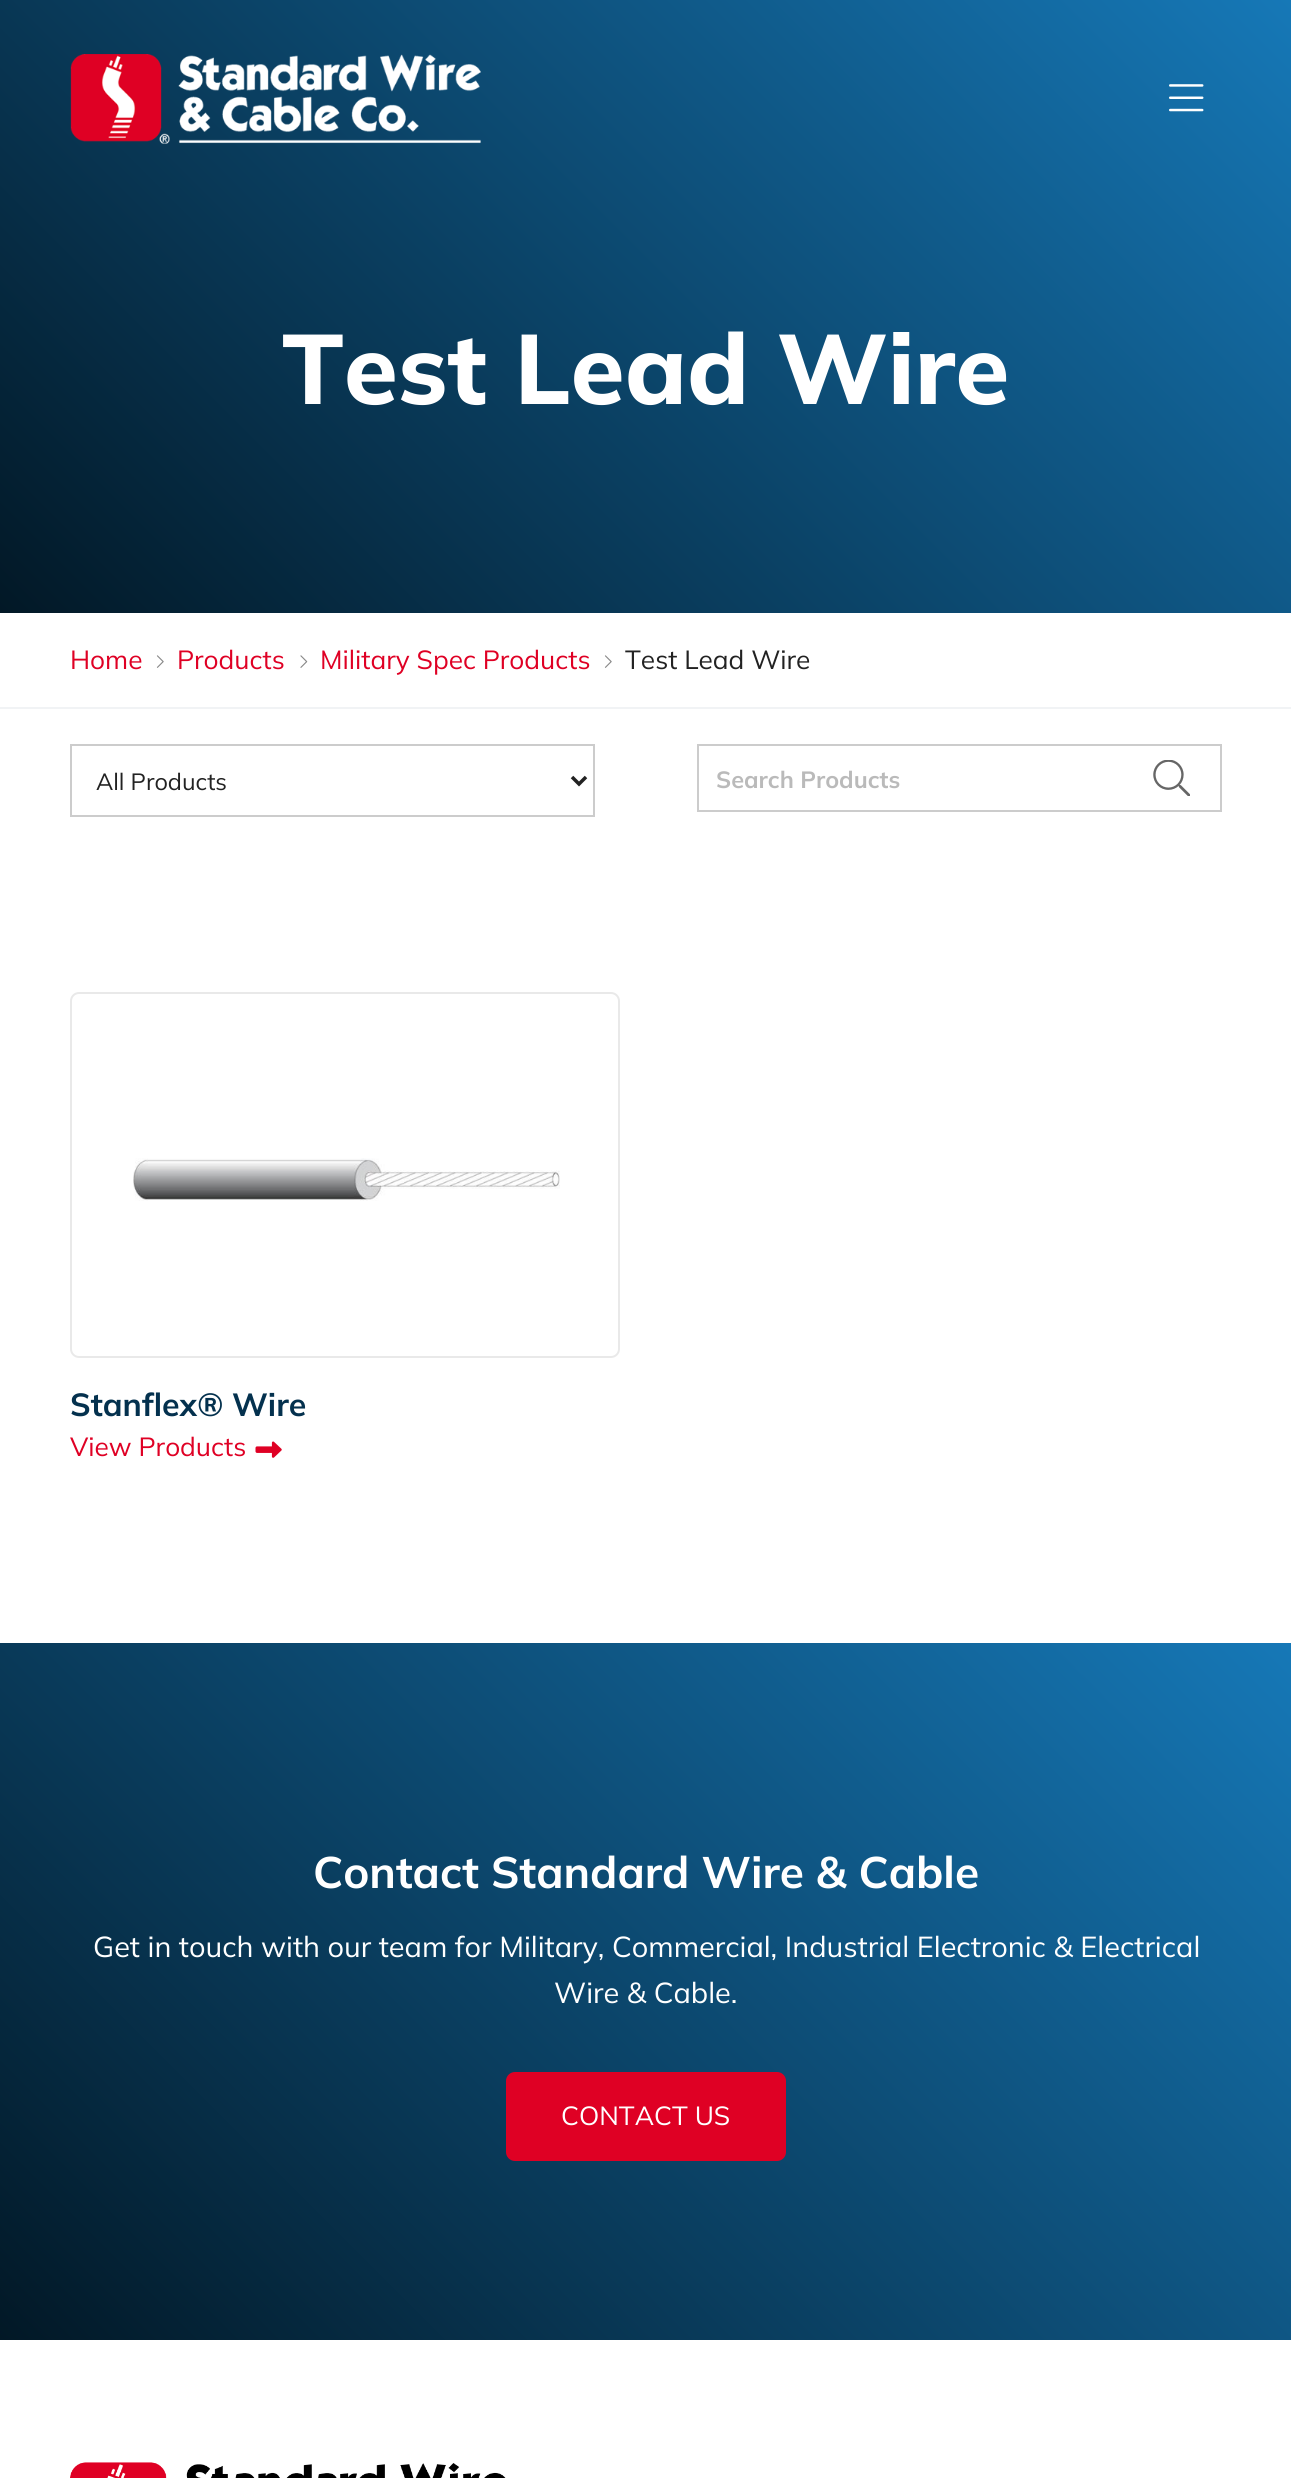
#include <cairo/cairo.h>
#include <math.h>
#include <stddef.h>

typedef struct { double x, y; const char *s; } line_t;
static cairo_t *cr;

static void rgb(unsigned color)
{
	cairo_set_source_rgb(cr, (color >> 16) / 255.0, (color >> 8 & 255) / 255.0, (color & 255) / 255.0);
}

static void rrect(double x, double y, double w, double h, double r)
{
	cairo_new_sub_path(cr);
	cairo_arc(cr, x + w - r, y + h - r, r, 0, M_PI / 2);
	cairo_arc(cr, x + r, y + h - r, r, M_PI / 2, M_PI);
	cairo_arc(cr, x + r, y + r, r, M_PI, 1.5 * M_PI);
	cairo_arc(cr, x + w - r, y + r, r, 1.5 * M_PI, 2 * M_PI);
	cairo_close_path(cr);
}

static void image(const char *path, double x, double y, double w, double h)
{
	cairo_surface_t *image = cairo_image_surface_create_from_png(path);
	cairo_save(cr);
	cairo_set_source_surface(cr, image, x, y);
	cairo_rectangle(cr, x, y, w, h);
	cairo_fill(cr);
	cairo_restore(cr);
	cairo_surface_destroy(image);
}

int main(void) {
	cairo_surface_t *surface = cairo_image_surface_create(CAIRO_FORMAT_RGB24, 1291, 2478);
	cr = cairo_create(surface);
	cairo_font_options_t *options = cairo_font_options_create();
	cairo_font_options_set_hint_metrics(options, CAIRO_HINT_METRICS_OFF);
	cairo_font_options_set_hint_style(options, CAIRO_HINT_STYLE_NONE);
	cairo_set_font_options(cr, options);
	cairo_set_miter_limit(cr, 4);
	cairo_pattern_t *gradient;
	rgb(0xffffff);
	cairo_paint(cr);
	gradient = cairo_pattern_create_linear(1122, -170, 170, 782);
	cairo_pattern_add_color_stop_rgba(gradient, 0, 0.086, 0.471, 0.718, 1);
	cairo_pattern_add_color_stop_rgba(gradient, 1, 0.008, 0.094, 0.149, 1);
	cairo_set_source(cr, gradient);
	cairo_pattern_destroy(gradient);
	cairo_rectangle(cr, 0, 0, 1291, 613);
	cairo_fill(cr);
	image("img/1.png", 70, 54, 411, 90);
	image("img/2.png", 1169, 84, 35, 28);
	rgb(0xf1f3f5);
	cairo_rectangle(cr, 0, 707, 1291, 2);
	cairo_fill(cr);
	image("img/3.png", 156, 655, 8, 13);
	image("img/4.png", 300, 655, 8, 13);
	image("img/3.png", 604, 655, 8, 13);
	cairo_rectangle(cr, 71, 745, 523, 71);
	rgb(0xcccccc);
	cairo_stroke(cr);
	cairo_new_path(cr);
	cairo_move_to(cr, 572, 777);
	cairo_line_to(cr, 579, 784);
	cairo_line_to(cr, 586, 777);
	rgb(0x222222);
	cairo_set_line_width(cr, 3.5);
	cairo_stroke(cr);
	cairo_rectangle(cr, 698, 745, 523, 66);
	rgb(0xcccccc);
	cairo_set_line_width(cr, 2);
	cairo_stroke(cr);
	image("img/5.png", 1153, 760, 37, 36);
	rrect(71, 993, 548, 364, 8);
	rgb(0xe9e9e9);
	cairo_stroke(cr);
	image("img/6.png", 133, 1158, 427, 43);
	image("img/7.png", 255, 1441, 27, 17);
	gradient = cairo_pattern_create_linear(1143, 1495, 149, 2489);
	cairo_pattern_add_color_stop_rgba(gradient, 0, 0.086, 0.471, 0.718, 1);
	cairo_pattern_add_color_stop_rgba(gradient, 1, 0.008, 0.094, 0.149, 1);
	cairo_set_source(cr, gradient);
	cairo_pattern_destroy(gradient);
	cairo_rectangle(cr, 0, 1643, 1291, 697);
	cairo_fill(cr);
	rgb(0xdf0024);
	rrect(508, 2074, 276, 85, 7);
	cairo_fill_preserve(cr);
	cairo_set_line_width(cr, 4);
	cairo_stroke(cr);
	image("img/8.png", 70, 2462, 436, 16);
	cairo_select_font_face(cr, "Mulish ExtraBold", CAIRO_FONT_SLANT_NORMAL, CAIRO_FONT_WEIGHT_NORMAL);
	cairo_set_font_size(cr, 98.5);
	rgb(0xffffff);
	cairo_move_to(cr, 282, 404);
	cairo_show_text(cr, "Test Lead Wire");
	cairo_select_font_face(cr, "Mulish", CAIRO_FONT_SLANT_NORMAL, CAIRO_FONT_WEIGHT_NORMAL);
	cairo_set_font_size(cr, 26.25);
	rgb(0xdf0024);
	{
		static const line_t items[] = {
			{70, 669, "Home"},
			{177, 669, "Products"},
			{320, 669, "Military Spec Products"},
		};
		for (size_t i = 0; i < sizeof items / sizeof *items; i++) {
			cairo_move_to(cr, items[i].x, items[i].y);
			cairo_show_text(cr, items[i].s);
		}
	}
	rgb(0x222222);
	cairo_move_to(cr, 625, 669);
	cairo_show_text(cr, "Test Lead Wire");
	cairo_set_font_size(cr, 23.5);
	cairo_move_to(cr, 96, 790);
	cairo_show_text(cr, "All Products");
	cairo_select_font_face(cr, "Mulish", CAIRO_FONT_SLANT_NORMAL, CAIRO_FONT_WEIGHT_BOLD);
	rgb(0xbababa);
	cairo_move_to(cr, 716, 788);
	cairo_show_text(cr, "Search Products");
	cairo_set_font_size(cr, 32);
	rgb(0x04314e);
	cairo_move_to(cr, 70, 1416);
	cairo_show_text(cr, "Stanflex® Wire");
	cairo_select_font_face(cr, "Mulish", CAIRO_FONT_SLANT_NORMAL, CAIRO_FONT_WEIGHT_NORMAL);
	cairo_set_font_size(cr, 26.25);
	rgb(0xdf0024);
	cairo_move_to(cr, 70, 1456);
	cairo_show_text(cr, "View Products");
	cairo_select_font_face(cr, "Mulish", CAIRO_FONT_SLANT_NORMAL, CAIRO_FONT_WEIGHT_BOLD);
	cairo_set_font_size(cr, 44.1);
	rgb(0xffffff);
	cairo_move_to(cr, 313, 1888);
	cairo_show_text(cr, "Contact Standard Wire & Cable");
	cairo_select_font_face(cr, "Mulish", CAIRO_FONT_SLANT_NORMAL, CAIRO_FONT_WEIGHT_NORMAL);
	cairo_set_font_size(cr, 28.9);
	cairo_move_to(cr, 93, 1957);
	cairo_show_text(cr, "Get in touch with our team for Military, Commercial, Industrial Electronic & Electrical");
	cairo_move_to(cr, 554, 2003);
	cairo_show_text(cr, "Wire & Cable.");
	cairo_set_font_size(cr, 26.25);
	cairo_move_to(cr, 561, 2125);
	cairo_show_text(cr, "CONTACT US");
	cairo_surface_write_to_png(surface, "page.png");
	cairo_font_options_destroy(options);
	cairo_destroy(cr);
	cairo_surface_destroy(surface);
	return 0;
}
